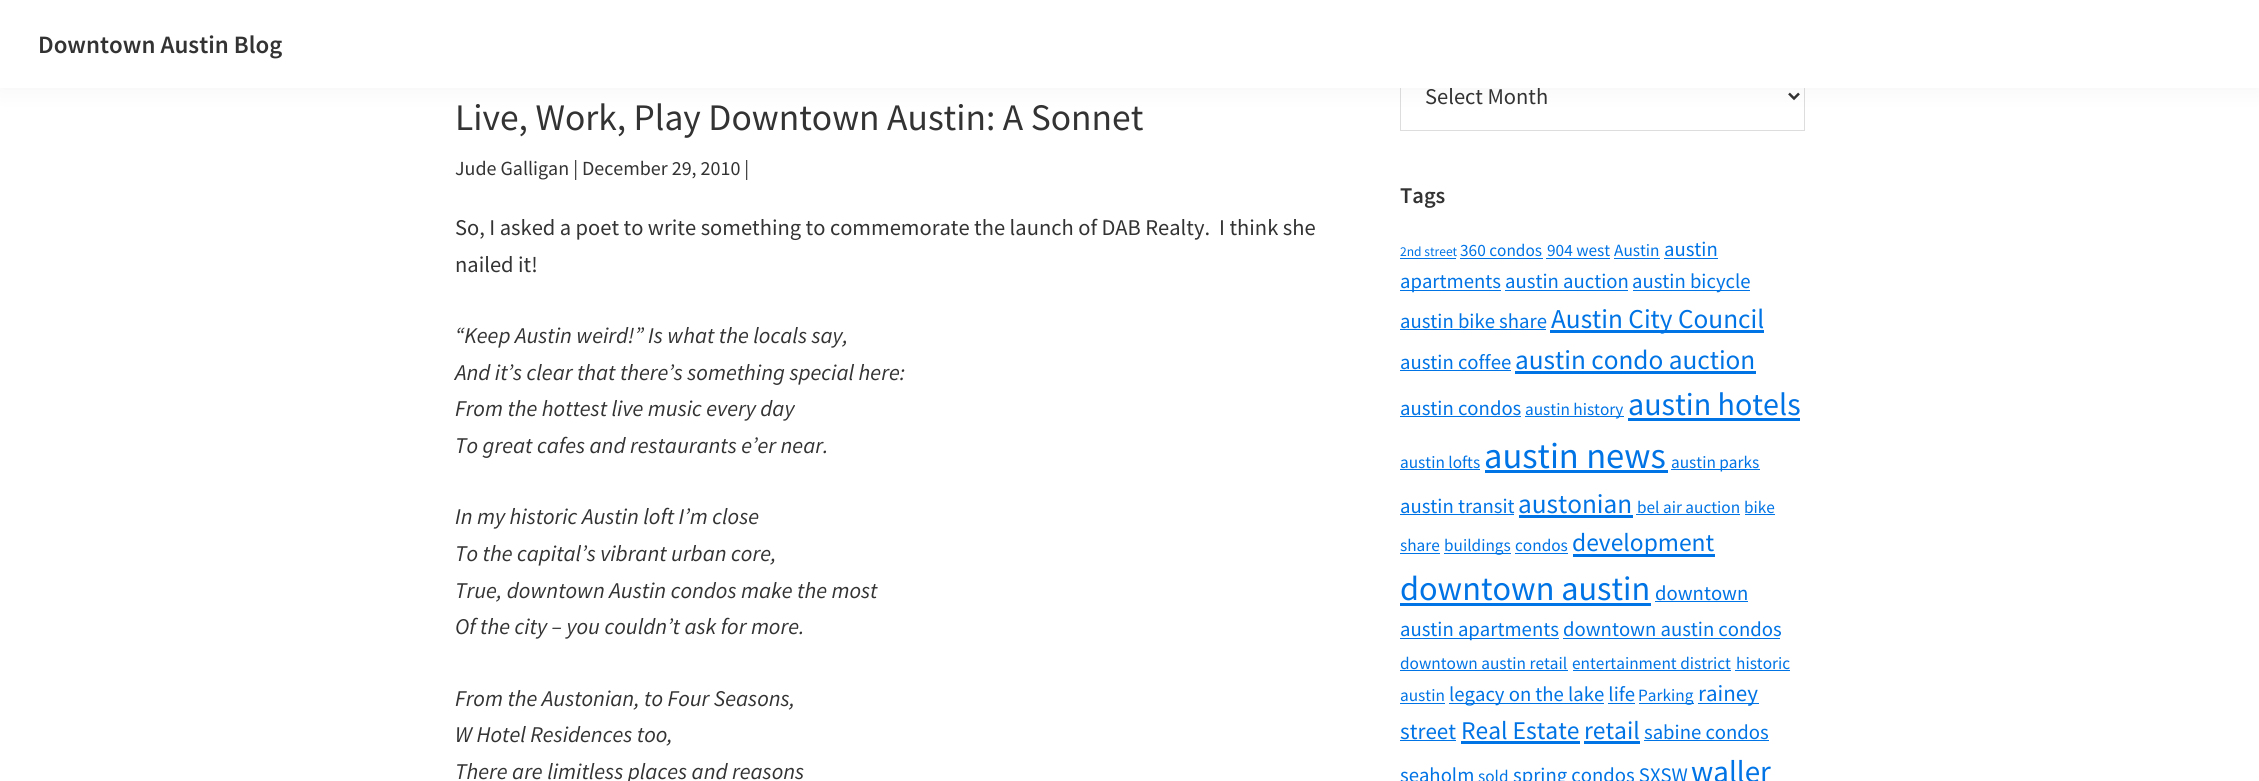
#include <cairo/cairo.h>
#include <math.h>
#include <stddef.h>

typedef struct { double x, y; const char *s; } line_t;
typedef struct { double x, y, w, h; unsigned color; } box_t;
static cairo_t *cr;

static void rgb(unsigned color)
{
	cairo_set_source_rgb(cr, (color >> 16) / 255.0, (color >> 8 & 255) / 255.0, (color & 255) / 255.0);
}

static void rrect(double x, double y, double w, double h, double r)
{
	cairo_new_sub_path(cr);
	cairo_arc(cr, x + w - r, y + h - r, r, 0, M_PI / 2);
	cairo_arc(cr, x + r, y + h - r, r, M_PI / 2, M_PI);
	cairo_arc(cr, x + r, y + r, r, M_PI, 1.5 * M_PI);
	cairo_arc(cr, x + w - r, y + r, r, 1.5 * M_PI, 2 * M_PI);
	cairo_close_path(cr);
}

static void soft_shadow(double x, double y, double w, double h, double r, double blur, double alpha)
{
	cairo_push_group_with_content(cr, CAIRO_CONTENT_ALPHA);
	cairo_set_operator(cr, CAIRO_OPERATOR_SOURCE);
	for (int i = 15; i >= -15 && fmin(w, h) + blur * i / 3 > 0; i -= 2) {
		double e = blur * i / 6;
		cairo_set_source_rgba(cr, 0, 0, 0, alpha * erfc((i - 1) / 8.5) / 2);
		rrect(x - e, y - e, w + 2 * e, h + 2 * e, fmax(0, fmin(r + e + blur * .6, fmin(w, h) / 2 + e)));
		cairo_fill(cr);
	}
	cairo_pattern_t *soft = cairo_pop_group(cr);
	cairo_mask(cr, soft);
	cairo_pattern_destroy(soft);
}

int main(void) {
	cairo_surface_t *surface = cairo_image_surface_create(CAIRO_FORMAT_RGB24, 2259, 781);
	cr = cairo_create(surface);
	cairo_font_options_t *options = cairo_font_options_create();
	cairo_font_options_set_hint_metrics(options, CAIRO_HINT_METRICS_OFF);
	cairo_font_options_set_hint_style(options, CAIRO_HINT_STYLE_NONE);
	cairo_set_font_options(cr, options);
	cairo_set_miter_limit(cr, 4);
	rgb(0xffffff);
	cairo_paint(cr);
	cairo_rectangle(cr, 1400.5, 60.5, 404, 70);
	rgb(0xdddddd);
	cairo_set_line_width(cr, 1);
	cairo_stroke(cr);
	cairo_new_path(cr);
	cairo_move_to(cr, 1789, 93.5);
	cairo_line_to(cr, 1794, 98.5);
	cairo_line_to(cr, 1799, 93.5);
	rgb(0x333333);
	cairo_set_line_width(cr, 2.5);
	cairo_stroke(cr);
	rgb(0x000000);
	soft_shadow(0, 0, 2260, 88, 0, 12.5, 0.05);
	{
		static const box_t items[] = {
			{0, 0, 2259, 88, 0xffffff},
			{1400, 258, 56, 1, 0x0073e5},
			{1460, 258, 83, 1, 0x0073e5},
			{1546, 258, 64, 1, 0x0073e5},
			{1614, 258, 46, 1, 0x0073e5},
			{1664, 258, 54, 1, 0x0073e5},
			{1400, 290, 101, 1, 0x0073e5},
			{1633, 290, 117, 1, 0x0073e5},
			{1505, 290, 123, 1, 0x0073e5},
			{1400, 329, 146, 1, 0x0073e5},
			{1550, 330, 214, 3, 0x0073e5},
			{1400, 370, 111, 1, 0x0073e5},
			{1515, 371, 241, 3, 0x0073e5},
			{1400, 416, 121, 1, 0x0073e5},
			{1525, 416, 99, 1, 0x0073e5},
			{1628, 418, 172, 3, 0x0073e5},
			{1400, 469, 80, 1, 0x0073e5},
			{1485, 470, 183, 3, 0x0073e5},
			{1671, 469, 89, 1, 0x0073e5},
			{1400, 514, 114, 1, 0x0073e5},
			{1519, 515, 114, 3, 0x0073e5},
			{1636, 514, 104, 1, 0x0073e5},
			{1745, 514, 30, 1, 0x0073e5},
			{1400, 553, 40, 1, 0x0073e5},
			{1444, 553, 67, 1, 0x0073e5},
			{1515, 553, 53, 1, 0x0073e5},
			{1573, 554, 142, 3, 0x0073e5},
			{1400, 603, 251, 3, 0x0073e5},
			{1655, 601, 93, 1, 0x0073e5},
			{1400, 638, 159, 1, 0x0073e5},
			{1563, 638, 217, 1, 0x0073e5},
			{1400, 670, 168, 1, 0x0073e5},
			{1573, 670, 158, 1, 0x0073e5},
			{1735, 670, 55, 1, 0x0073e5},
			{1400, 703, 45, 1, 0x0073e5},
			{1449, 703, 155, 1, 0x0073e5},
			{1639, 703, 55, 1, 0x0073e5},
			{1698, 703, 61, 1, 0x0073e5},
			{1608, 703, 27, 1, 0x0073e5},
			{1400, 740, 56, 1, 0x0073e5},
			{1461, 741, 119, 3, 0x0073e5},
			{1584, 741, 56, 3, 0x0073e5},
			{1644, 740, 125, 1, 0x0073e5},
		};
		for (size_t i = 0; i < sizeof items / sizeof *items; i++) {
			rgb(items[i].color);
			cairo_rectangle(cr, items[i].x, items[i].y, items[i].w, items[i].h);
			cairo_fill(cr);
		}
	}
	cairo_select_font_face(cr, "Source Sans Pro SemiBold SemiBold", CAIRO_FONT_SLANT_NORMAL, CAIRO_FONT_WEIGHT_NORMAL);
	cairo_set_font_size(cr, 25);
	rgb(0x333333);
	cairo_move_to(cr, 38, 53);
	cairo_show_text(cr, "Downtown Austin Blog");
	cairo_select_font_face(cr, "Source Sans Pro", CAIRO_FONT_SLANT_NORMAL, CAIRO_FONT_WEIGHT_NORMAL);
	cairo_set_font_size(cr, 37.5);
	cairo_move_to(cr, 455, 130);
	cairo_show_text(cr, "Live, Work, Play Downtown Austin: A Sonnet");
	cairo_set_font_size(cr, 20);
	cairo_move_to(cr, 455, 175);
	cairo_show_text(cr, "Jude Galligan | December 29, 2010 |");
	cairo_set_font_size(cr, 22.5);
	cairo_move_to(cr, 455, 235);
	cairo_show_text(cr, "So, I asked a poet to write something to commemorate the launch of DAB Realty.  I think she");
	cairo_move_to(cr, 455, 272);
	cairo_show_text(cr, "nailed it!");
	cairo_select_font_face(cr, "Source Sans Pro", CAIRO_FONT_SLANT_ITALIC, CAIRO_FONT_WEIGHT_NORMAL);
	{
		static const line_t items[] = {
			{455, 343, "“Keep Austin weird!” Is what the locals say,"},
			{455, 380, "And it’s clear that there’s something special here:"},
			{455, 416, "From the hottest live music every day"},
			{455, 453, "To great cafes and restaurants e’er near."},
			{455, 524, "In my historic Austin loft I’m close"},
			{455, 561, "To the capital’s vibrant urban core,"},
			{455, 598, "True, downtown Austin condos make the most"},
			{455, 634, "Of the city – you couldn’t ask for more."},
			{455, 706, "From the Austonian, to Four Seasons,"},
			{455, 742, "W Hotel Residences too,"},
			{455, 779, "There are limitless places and reasons"},
		};
		for (size_t i = 0; i < sizeof items / sizeof *items; i++) {
			cairo_move_to(cr, items[i].x, items[i].y);
			cairo_show_text(cr, items[i].s);
		}
	}
	cairo_select_font_face(cr, "Source Sans Pro", CAIRO_FONT_SLANT_NORMAL, CAIRO_FONT_WEIGHT_NORMAL);
	cairo_move_to(cr, 1425, 104);
	cairo_show_text(cr, "Select Month");
	cairo_select_font_face(cr, "Source Sans Pro SemiBold SemiBold", CAIRO_FONT_SLANT_NORMAL, CAIRO_FONT_WEIGHT_NORMAL);
	cairo_move_to(cr, 1400, 203);
	cairo_show_text(cr, "Tags");
	cairo_select_font_face(cr, "Source Sans Pro", CAIRO_FONT_SLANT_NORMAL, CAIRO_FONT_WEIGHT_NORMAL);
	cairo_set_font_size(cr, 13.5);
	rgb(0x0073e5);
	cairo_move_to(cr, 1400, 256);
	cairo_show_text(cr, "2nd street");
	cairo_set_font_size(cr, 17.25);
	{
		static const line_t items[] = {
			{1460, 256, "360 condos"},
			{1547, 256, "904 west"},
			{1614, 256, "Austin"},
		};
		for (size_t i = 0; i < sizeof items / sizeof *items; i++) {
			cairo_move_to(cr, items[i].x, items[i].y);
			cairo_show_text(cr, items[i].s);
		}
	}
	cairo_set_font_size(cr, 20.7);
	{
		static const line_t items[] = {
			{1664, 256, "austin"},
			{1400, 288, "apartments austin auction"},
			{1632, 288, "austin bicycle"},
			{1400, 328, "austin bike share"},
		};
		for (size_t i = 0; i < sizeof items / sizeof *items; i++) {
			cairo_move_to(cr, items[i].x, items[i].y);
			cairo_show_text(cr, items[i].s);
		}
	}
	cairo_set_font_size(cr, 27.25);
	cairo_move_to(cr, 1551, 328);
	cairo_show_text(cr, "Austin City Council");
	cairo_set_font_size(cr, 20.7);
	cairo_move_to(cr, 1400, 369);
	cairo_show_text(cr, "austin coffee");
	cairo_set_font_size(cr, 27.25);
	cairo_move_to(cr, 1515, 369);
	cairo_show_text(cr, "austin condo auction");
	cairo_set_font_size(cr, 20.7);
	cairo_move_to(cr, 1400, 415);
	cairo_show_text(cr, "austin condos");
	cairo_set_font_size(cr, 17.25);
	cairo_move_to(cr, 1525, 415);
	cairo_show_text(cr, "austin history");
	cairo_set_font_size(cr, 32);
	cairo_move_to(cr, 1628, 415);
	cairo_show_text(cr, "austin hotels");
	cairo_set_font_size(cr, 17.25);
	cairo_move_to(cr, 1400, 468);
	cairo_show_text(cr, "austin lofts");
	cairo_set_font_size(cr, 36.5);
	cairo_move_to(cr, 1484, 468);
	cairo_show_text(cr, "austin news");
	cairo_set_font_size(cr, 17.25);
	cairo_move_to(cr, 1671, 468);
	cairo_show_text(cr, "austin parks");
	cairo_set_font_size(cr, 20.7);
	cairo_move_to(cr, 1400, 513);
	cairo_show_text(cr, "austin transit");
	cairo_set_font_size(cr, 27.25);
	cairo_move_to(cr, 1518, 513);
	cairo_show_text(cr, "austonian");
	cairo_set_font_size(cr, 17.25);
	{
		static const line_t items[] = {
			{1637, 513, "bel air auction"},
			{1744, 513, "bike"},
			{1400, 551, "share"},
			{1444, 551, "buildings"},
			{1515, 551, "condos"},
		};
		for (size_t i = 0; i < sizeof items / sizeof *items; i++) {
			cairo_move_to(cr, items[i].x, items[i].y);
			cairo_show_text(cr, items[i].s);
		}
	}
	cairo_set_font_size(cr, 25.5);
	cairo_move_to(cr, 1572, 551);
	cairo_show_text(cr, "development");
	cairo_set_font_size(cr, 34.25);
	cairo_move_to(cr, 1400, 600);
	cairo_show_text(cr, "downtown austin");
	cairo_set_font_size(cr, 20.7);
	cairo_move_to(cr, 1655, 600);
	cairo_show_text(cr, "downtown");
	cairo_move_to(cr, 1400, 636);
	cairo_show_text(cr, "austin apartments downtown austin condos");
	cairo_set_font_size(cr, 17.25);
	{
		static const line_t items[] = {
			{1400, 669, "downtown austin retail"},
			{1572, 669, "entertainment district"},
			{1736, 669, "historic"},
			{1400, 701, "austin"},
		};
		for (size_t i = 0; i < sizeof items / sizeof *items; i++) {
			cairo_move_to(cr, items[i].x, items[i].y);
			cairo_show_text(cr, items[i].s);
		}
	}
	cairo_set_font_size(cr, 20.7);
	cairo_move_to(cr, 1449, 701);
	cairo_show_text(cr, "legacy on the lake life");
	cairo_set_font_size(cr, 17.25);
	cairo_move_to(cr, 1638, 701);
	cairo_show_text(cr, "Parking");
	cairo_set_font_size(cr, 23);
	cairo_move_to(cr, 1698, 701);
	cairo_show_text(cr, "rainey");
	cairo_move_to(cr, 1400, 739);
	cairo_show_text(cr, "street");
	cairo_set_font_size(cr, 25.5);
	cairo_move_to(cr, 1461, 739);
	cairo_show_text(cr, "Real Estate");
	cairo_move_to(cr, 1584, 739);
	cairo_show_text(cr, "retail");
	cairo_set_font_size(cr, 20.7);
	cairo_move_to(cr, 1644, 739);
	cairo_show_text(cr, "sabine condos");
	cairo_move_to(cr, 1400, 782);
	cairo_show_text(cr, "seaholm");
	cairo_set_font_size(cr, 17.25);
	cairo_move_to(cr, 1478, 782);
	cairo_show_text(cr, "sold");
	cairo_set_font_size(cr, 20.7);
	cairo_move_to(cr, 1513, 782);
	cairo_show_text(cr, "spring condos SXSW");
	cairo_set_font_size(cr, 31);
	cairo_move_to(cr, 1691, 782);
	cairo_show_text(cr, "waller");
	cairo_surface_write_to_png(surface, "page.png");
	cairo_font_options_destroy(options);
	cairo_destroy(cr);
	cairo_surface_destroy(surface);
	return 0;
}
